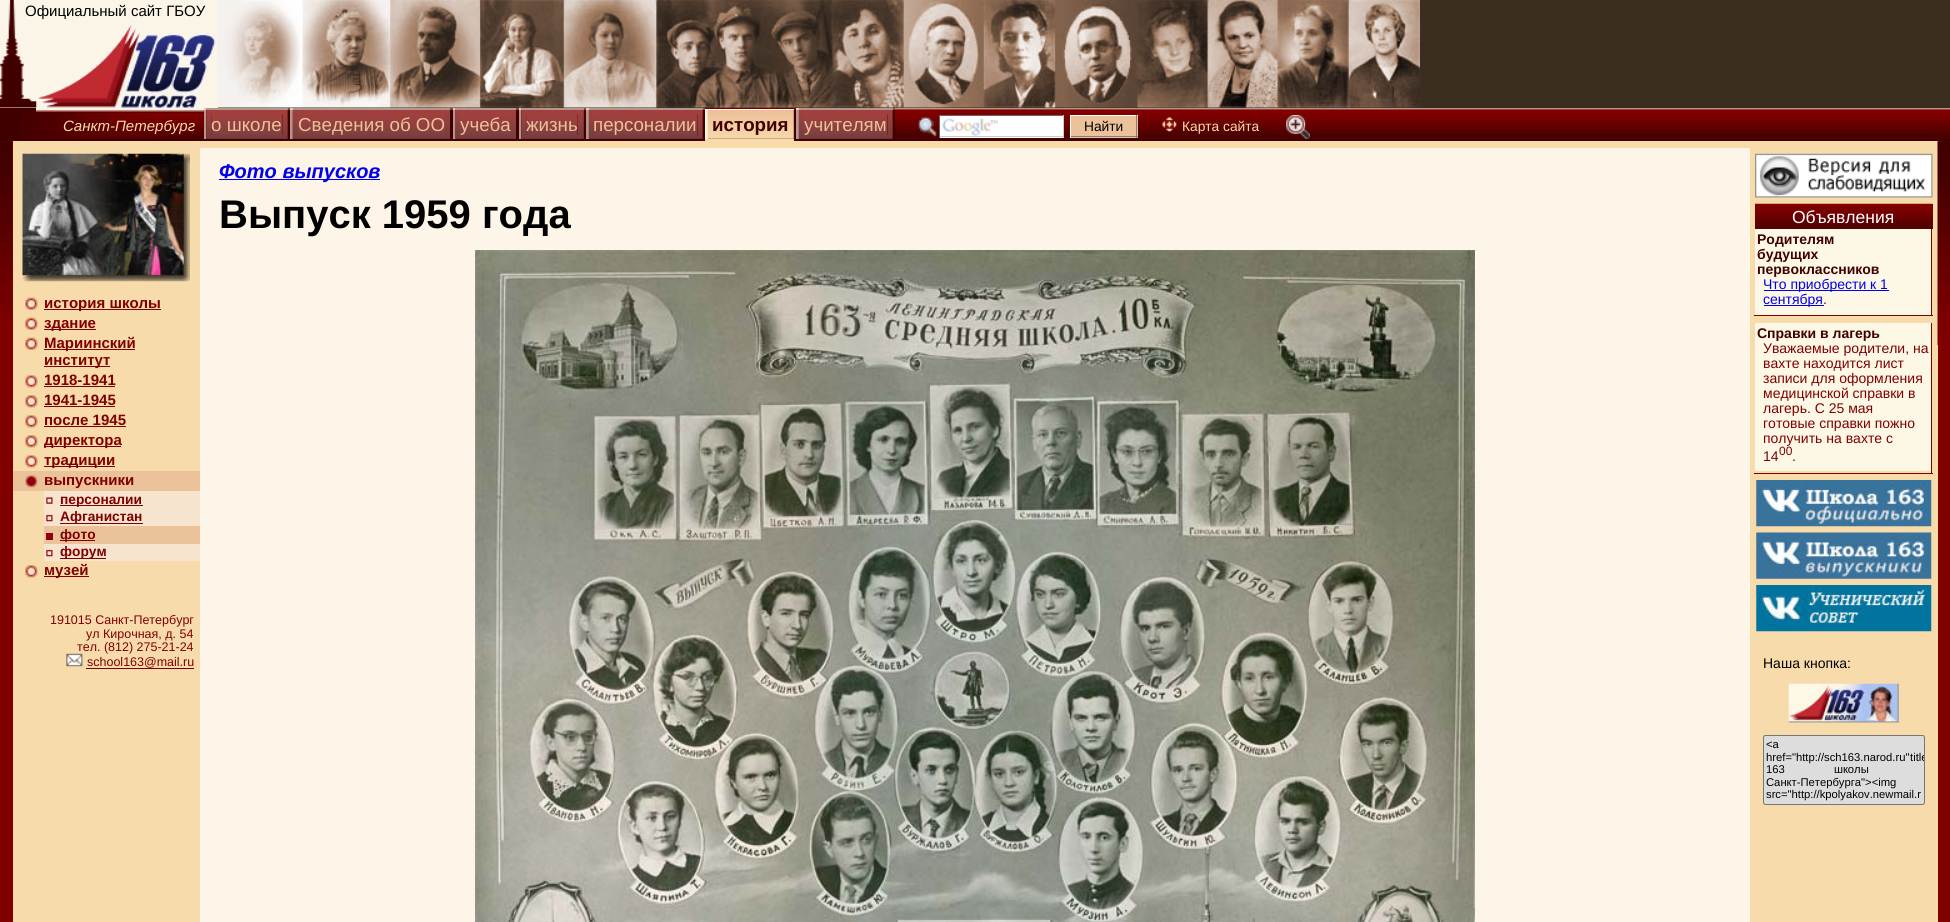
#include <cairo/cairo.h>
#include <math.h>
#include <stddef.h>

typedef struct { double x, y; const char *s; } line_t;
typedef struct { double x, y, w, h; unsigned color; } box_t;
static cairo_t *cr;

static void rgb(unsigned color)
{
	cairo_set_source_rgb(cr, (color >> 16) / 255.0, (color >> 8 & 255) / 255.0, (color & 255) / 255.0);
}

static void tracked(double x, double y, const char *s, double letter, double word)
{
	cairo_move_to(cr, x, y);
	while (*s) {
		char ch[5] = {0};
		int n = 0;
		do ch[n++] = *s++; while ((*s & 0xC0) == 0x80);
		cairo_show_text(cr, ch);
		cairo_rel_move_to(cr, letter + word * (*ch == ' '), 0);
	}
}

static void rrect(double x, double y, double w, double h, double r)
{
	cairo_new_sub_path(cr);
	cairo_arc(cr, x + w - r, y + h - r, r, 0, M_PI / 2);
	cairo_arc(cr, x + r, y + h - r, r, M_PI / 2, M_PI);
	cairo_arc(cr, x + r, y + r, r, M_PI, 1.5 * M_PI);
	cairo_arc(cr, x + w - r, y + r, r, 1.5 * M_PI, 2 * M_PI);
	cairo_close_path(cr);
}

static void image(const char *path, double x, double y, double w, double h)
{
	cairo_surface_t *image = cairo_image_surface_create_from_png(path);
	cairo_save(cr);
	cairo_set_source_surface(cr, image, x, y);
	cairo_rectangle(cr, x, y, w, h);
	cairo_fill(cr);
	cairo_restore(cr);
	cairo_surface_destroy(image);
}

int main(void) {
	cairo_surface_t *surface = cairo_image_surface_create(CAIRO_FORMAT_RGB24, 1950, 922);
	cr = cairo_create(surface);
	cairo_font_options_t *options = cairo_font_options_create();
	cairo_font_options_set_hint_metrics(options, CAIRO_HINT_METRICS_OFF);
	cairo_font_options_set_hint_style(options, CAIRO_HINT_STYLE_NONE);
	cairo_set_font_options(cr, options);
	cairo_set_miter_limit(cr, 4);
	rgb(0x800000);
	cairo_paint(cr);
	rgb(0xfbf5e8);
	cairo_rectangle(cr, 0, 0, 218, 108);
	cairo_fill(cr);
	image("img/1.png", 0, 0, 37, 108);
	image("img/2.png", 37, 24, 179, 84);
	rgb(0x3b2d20);
	cairo_rectangle(cr, 218, 0, 1732, 108);
	cairo_fill(cr);
	image("img/3.png", 217, 0, 1203, 108);
	{
		static const box_t items[] = {
			{0, 108, 204, 33, 0x400000},
			{36, 108, 168, 2, 0xfbf5e8},
			{36, 110, 168, 1, 0xb3968e},
			{36, 111, 168, 1, 0xa2403d},
		};
		for (size_t i = 0; i < sizeof items / sizeof *items; i++) {
			rgb(items[i].color);
			cairo_rectangle(cr, items[i].x, items[i].y, items[i].w, items[i].h);
			cairo_fill(cr);
		}
	}
	image("img/4.png", 20, 112, 184, 27);
	{
		static const box_t items[] = {
			{204, 108, 3, 2, 0xdfd0c5},
			{206, 108, 82, 2, 0xb3968e},
			{288, 108, 3, 2, 0x794b48},
			{204, 110, 2, 29, 0xb3968e},
		};
		for (size_t i = 0; i < sizeof items / sizeof *items; i++) {
			rgb(items[i].color);
			cairo_rectangle(cr, items[i].x, items[i].y, items[i].w, items[i].h);
			cairo_fill(cr);
		}
	}
	image("img/5.png", 206, 110, 82, 29);
	rgb(0x800000);
	cairo_rectangle(cr, 211, 114, 72, 21);
	cairo_fill(cr);
	image("img/6.png", 211, 114, 72, 21);
	{
		static const box_t items[] = {
			{288, 110, 2, 29, 0x400000},
			{204, 139, 501, 2, 0x400000},
			{290, 108, 3, 2, 0xdfd0c5},
			{293, 108, 157, 2, 0xb3968e},
			{450, 108, 3, 2, 0x794b48},
			{290, 110, 3, 29, 0xb3968e},
		};
		for (size_t i = 0; i < sizeof items / sizeof *items; i++) {
			rgb(items[i].color);
			cairo_rectangle(cr, items[i].x, items[i].y, items[i].w, items[i].h);
			cairo_fill(cr);
		}
	}
	image("img/7.png", 292, 110, 158, 29);
	image("img/8.png", 297, 114, 148, 21);
	{
		static const box_t items[] = {
			{450, 110, 3, 29, 0x400000},
			{453, 108, 3, 2, 0xdfd0c5},
			{455, 108, 61, 2, 0xb3968e},
			{516, 108, 3, 2, 0x794b48},
			{453, 110, 3, 29, 0xb3968e},
		};
		for (size_t i = 0; i < sizeof items / sizeof *items; i++) {
			rgb(items[i].color);
			cairo_rectangle(cr, items[i].x, items[i].y, items[i].w, items[i].h);
			cairo_fill(cr);
		}
	}
	image("img/9.png", 455, 110, 61, 29);
	image("img/10.png", 460, 114, 51, 21);
	{
		static const box_t items[] = {
			{516, 110, 3, 29, 0x400000},
			{519, 108, 3, 2, 0xdfd0c5},
			{521, 108, 63, 2, 0xb3968e},
			{584, 108, 3, 2, 0x794b48},
			{519, 110, 2, 29, 0xb3968e},
		};
		for (size_t i = 0; i < sizeof items / sizeof *items; i++) {
			rgb(items[i].color);
			cairo_rectangle(cr, items[i].x, items[i].y, items[i].w, items[i].h);
			cairo_fill(cr);
		}
	}
	image("img/11.png", 521, 110, 63, 29);
	rgb(0x800000);
	cairo_rectangle(cr, 526, 114, 52, 21);
	cairo_fill(cr);
	image("img/12.png", 526, 114, 52, 21);
	{
		static const box_t items[] = {
			{584, 110, 2, 29, 0x400000},
			{586, 108, 3, 2, 0xdfd0c5},
			{589, 108, 114, 2, 0xb3968e},
			{703, 108, 3, 2, 0x794b48},
			{586, 110, 3, 29, 0xb3968e},
		};
		for (size_t i = 0; i < sizeof items / sizeof *items; i++) {
			rgb(items[i].color);
			cairo_rectangle(cr, items[i].x, items[i].y, items[i].w, items[i].h);
			cairo_fill(cr);
		}
	}
	image("img/13.png", 588, 110, 115, 29);
	rgb(0x800000);
	cairo_rectangle(cr, 697, 114, 1, 21);
	cairo_fill(cr);
	image("img/14.png", 594, 114, 104, 21);
	{
		static const box_t items[] = {
			{703, 110, 2, 29, 0x400000},
			{705, 108, 1, 1, 0x800000},
			{705, 109, 89, 1, 0xfdf8e5},
			{705, 110, 3, 29, 0xfdf8e5},
		};
		for (size_t i = 0; i < sizeof items / sizeof *items; i++) {
			rgb(items[i].color);
			cairo_rectangle(cr, items[i].x, items[i].y, items[i].w, items[i].h);
			cairo_fill(cr);
		}
	}
	image("img/15.png", 707, 110, 87, 29);
	{
		static const box_t items[] = {
			{794, 110, 2, 29, 0x400000},
			{705, 139, 89, 2, 0xf8dbab},
			{794, 139, 1156, 2, 0x400000},
			{796, 108, 3, 2, 0xdfd0c5},
			{799, 108, 94, 2, 0xb3968e},
			{893, 108, 3, 2, 0x794b48},
			{796, 110, 3, 29, 0xb3968e},
		};
		for (size_t i = 0; i < sizeof items / sizeof *items; i++) {
			rgb(items[i].color);
			cairo_rectangle(cr, items[i].x, items[i].y, items[i].w, items[i].h);
			cairo_fill(cr);
		}
	}
	image("img/16.png", 798, 110, 95, 29);
	rgb(0x800000);
	cairo_rectangle(cr, 887, 114, 1, 21);
	cairo_fill(cr);
	image("img/17.png", 804, 114, 84, 21);
	{
		static const box_t items[] = {
			{893, 110, 2, 29, 0x400000},
			{895, 108, 1055, 1, 0xb3968e},
			{895, 109, 1055, 1, 0xa2403d},
		};
		for (size_t i = 0; i < sizeof items / sizeof *items; i++) {
			rgb(items[i].color);
			cairo_rectangle(cr, items[i].x, items[i].y, items[i].w, items[i].h);
			cairo_fill(cr);
		}
	}
	image("img/18.png", 895, 115, 1055, 24);
	image("img/19.png", 918, 117, 19, 20);
	rgb(0xffffff);
	cairo_rectangle(cr, 940, 116, 123, 22);
	cairo_fill(cr);
	image("img/20.png", 942, 118, 56, 18);
	{
		static const box_t items[] = {
			{939, 115, 125, 1, 0x666666},
			{1063, 115, 1, 23, 0xcccccc},
			{939, 136, 125, 1, 0xcccccc},
			{939, 115, 1, 23, 0x666666},
			{1071, 116, 67, 22, 0xecc29a},
			{1070, 115, 68, 1, 0xffffff},
			{1136, 115, 1, 23, 0x808080},
			{1070, 136, 68, 1, 0x808080},
			{1070, 115, 1, 23, 0xffffff},
		};
		for (size_t i = 0; i < sizeof items / sizeof *items; i++) {
			rgb(items[i].color);
			cairo_rectangle(cr, items[i].x, items[i].y, items[i].w, items[i].h);
			cairo_fill(cr);
		}
	}
	image("img/21.png", 1162, 117, 15, 15);
	image("img/22.png", 1286, 115, 24, 24);
	rgb(0xfdf5e8);
	cairo_rectangle(cr, 200, 148, 1550, 774);
	cairo_fill(cr);
	image("img/23.png", 0, 141, 13, 180);
	rgb(0xf8dbab);
	cairo_rectangle(cr, 200, 141, 1550, 7);
	cairo_fill(cr);
	rgb(0x0000ee);
	cairo_rectangle(cr, 219, 179, 161, 1);
	cairo_fill(cr);
	image("img/24.png", 475, 250, 1000, 672);
	rgb(0xf8dbab);
	cairo_rectangle(cr, 1750, 141, 188, 781);
	cairo_fill(cr);
	image("img/25.png", 1937, 141, 13, 204);
	cairo_rectangle(cr, 13, 141, 187, 781);
	cairo_fill(cr);
	image("img/26.png", 22, 153, 168, 129);
	image("img/27.png", 25, 297, 13, 13);
	rgb(0x800000);
	cairo_rectangle(cr, 44, 309, 117, 1);
	cairo_fill(cr);
	image("img/27.png", 25, 317, 13, 13);
	cairo_rectangle(cr, 44, 329, 52, 1);
	cairo_fill(cr);
	image("img/27.png", 25, 337, 13, 13);
	cairo_rectangle(cr, 44, 349, 91, 1);
	cairo_fill(cr);
	cairo_rectangle(cr, 44, 366, 66, 1);
	cairo_fill(cr);
	image("img/28.png", 25, 375, 13, 13);
	cairo_rectangle(cr, 44, 386, 71, 1);
	cairo_fill(cr);
	image("img/28.png", 25, 395, 13, 13);
	cairo_rectangle(cr, 44, 406, 71, 1);
	cairo_fill(cr);
	image("img/28.png", 25, 415, 13, 13);
	cairo_rectangle(cr, 44, 426, 82, 1);
	cairo_fill(cr);
	image("img/28.png", 25, 435, 13, 13);
	cairo_rectangle(cr, 44, 446, 77, 1);
	cairo_fill(cr);
	image("img/28.png", 25, 455, 13, 13);
	cairo_rectangle(cr, 44, 466, 71, 1);
	cairo_fill(cr);
	rgb(0xecc29a);
	cairo_rectangle(cr, 13, 471, 187, 20);
	cairo_fill(cr);
	image("img/29.png", 25, 475, 13, 13);
	rgb(0xf7e4ce);
	cairo_rectangle(cr, 44, 491, 156, 18);
	cairo_fill(cr);
	image("img/30.png", 46, 497, 7, 7);
	rgb(0x800000);
	cairo_rectangle(cr, 60, 505, 83, 1);
	cairo_fill(cr);
	rgb(0xf7e4ce);
	cairo_rectangle(cr, 44, 509, 156, 17);
	cairo_fill(cr);
	image("img/31.png", 46, 514, 7, 8);
	{
		static const box_t items[] = {
			{60, 523, 83, 1, 0x800000},
			{44, 526, 156, 18, 0xecc29a},
			{46, 533, 7, 7, 0x900010},
			{60, 540, 35, 1, 0x800000},
			{44, 544, 156, 17, 0xf7e4ce},
		};
		for (size_t i = 0; i < sizeof items / sizeof *items; i++) {
			rgb(items[i].color);
			cairo_rectangle(cr, items[i].x, items[i].y, items[i].w, items[i].h);
			cairo_fill(cr);
		}
	}
	image("img/31.png", 46, 549, 7, 8);
	rgb(0x800000);
	cairo_rectangle(cr, 60, 558, 46, 1);
	cairo_fill(cr);
	image("img/28.png", 25, 565, 13, 13);
	cairo_rectangle(cr, 44, 576, 45, 1);
	cairo_fill(cr);
	cairo_rectangle(cr, 86, 668, 108, 1);
	cairo_fill(cr);
	image("img/33.png", 1755, 153, 178, 45);
	cairo_rectangle(cr, 1755, 204, 178, 25);
	cairo_fill(cr);
	image("img/34.png", 1755, 203, 178, 26);
	{
		static const box_t items[] = {
			{1755, 229, 176, 86, 0xfdf8e5},
			{1931, 229, 1, 87, 0x800000},
			{1754, 315, 179, 1, 0x800000},
			{1764, 290, 125, 1, 0x0000ee},
			{1764, 305, 60, 1, 0x0000ee},
			{1755, 323, 176, 148, 0xfdf8e5},
			{1931, 323, 1, 151, 0x800000},
			{1754, 473, 179, 1, 0x800000},
		};
		for (size_t i = 0; i < sizeof items / sizeof *items; i++) {
			rgb(items[i].color);
			cairo_rectangle(cr, items[i].x, items[i].y, items[i].w, items[i].h);
			cairo_fill(cr);
		}
	}
	image("img/35.png", 1756, 480, 176, 47);
	image("img/36.png", 1756, 532, 176, 47);
	image("img/37.png", 1756, 585, 176, 47);
	image("img/38.png", 1788, 683, 111, 40);
	rgb(0xdddddd);
	rrect(1763.5, 735.5, 161, 69, 2);
	cairo_fill_preserve(cr);
	rgb(0x767676);
	cairo_set_line_width(cr, 1);
	cairo_stroke(cr);
	cairo_select_font_face(cr, "Liberation Sans", CAIRO_FONT_SLANT_NORMAL, CAIRO_FONT_WEIGHT_NORMAL);
	cairo_set_font_size(cr, 15);
	rgb(0x000000);
	cairo_move_to(cr, 25, 16);
	cairo_show_text(cr, "Официальный сайт ГБОУ");
	cairo_select_font_face(cr, "Liberation Sans", CAIRO_FONT_SLANT_ITALIC, CAIRO_FONT_WEIGHT_NORMAL);
	rgb(0xf8dbab);
	cairo_move_to(cr, 63, 131);
	cairo_show_text(cr, "Санкт-Петербург");
	cairo_select_font_face(cr, "Liberation Sans", CAIRO_FONT_SLANT_NORMAL, CAIRO_FONT_WEIGHT_NORMAL);
	cairo_set_font_size(cr, 18.75);
	rgb(0xecc29a);
	{
		static const line_t items[] = {
			{211, 131, "о школе"},
			{298, 131, "Сведения об ОО"},
			{460, 131, "учеба"},
			{526, 131, "жизнь"},
			{593, 131, "персоналии"},
		};
		for (size_t i = 0; i < sizeof items / sizeof *items; i++) {
			cairo_move_to(cr, items[i].x, items[i].y);
			cairo_show_text(cr, items[i].s);
		}
	}
	cairo_select_font_face(cr, "Liberation Sans", CAIRO_FONT_SLANT_NORMAL, CAIRO_FONT_WEIGHT_BOLD);
	rgb(0x400000);
	cairo_move_to(cr, 712, 131);
	cairo_show_text(cr, "история");
	cairo_select_font_face(cr, "Liberation Sans", CAIRO_FONT_SLANT_NORMAL, CAIRO_FONT_WEIGHT_NORMAL);
	rgb(0xecc29a);
	cairo_move_to(cr, 804, 131);
	cairo_show_text(cr, "учителям");
	cairo_set_font_size(cr, 13.75);
	rgb(0x000000);
	cairo_move_to(cr, 1084, 131);
	cairo_show_text(cr, "Найти");
	rgb(0xf8dbab);
	cairo_move_to(cr, 1182, 131);
	cairo_show_text(cr, "Карта сайта");
	cairo_select_font_face(cr, "Liberation Sans", CAIRO_FONT_SLANT_ITALIC, CAIRO_FONT_WEIGHT_BOLD);
	cairo_set_font_size(cr, 20);
	rgb(0x0000ee);
	cairo_move_to(cr, 219, 178);
	cairo_show_text(cr, "Фото выпусков");
	cairo_select_font_face(cr, "Liberation Sans", CAIRO_FONT_SLANT_NORMAL, CAIRO_FONT_WEIGHT_BOLD);
	cairo_set_font_size(cr, 40);
	rgb(0x000000);
	cairo_move_to(cr, 219, 228);
	cairo_show_text(cr, "Выпуск 1959 года");
	cairo_set_font_size(cr, 15);
	rgb(0x800000);
	{
		static const line_t items[] = {
			{44, 308, "история школы"},
			{44, 328, "здание"},
			{44, 348, "Мариинский"},
			{44, 365, "институт"},
			{44, 385, "1918-1941"},
			{44, 405, "1941-1945"},
			{44, 425, "после 1945"},
			{44, 445, "директора"},
			{44, 465, "традиции"},
			{44, 485, "выпускники"},
		};
		for (size_t i = 0; i < sizeof items / sizeof *items; i++) {
			cairo_move_to(cr, items[i].x, items[i].y);
			cairo_show_text(cr, items[i].s);
		}
	}
	cairo_set_font_size(cr, 13.75);
	{
		static const line_t items[] = {
			{60, 504, "персоналии"},
			{60, 521, "Афганистан"},
			{60, 539, "фото"},
			{60, 556, "форум"},
		};
		for (size_t i = 0; i < sizeof items / sizeof *items; i++) {
			cairo_move_to(cr, items[i].x, items[i].y);
			cairo_show_text(cr, items[i].s);
		}
	}
	cairo_set_font_size(cr, 15);
	cairo_move_to(cr, 44, 575);
	cairo_show_text(cr, "музей");
	cairo_select_font_face(cr, "Liberation Sans", CAIRO_FONT_SLANT_NORMAL, CAIRO_FONT_WEIGHT_NORMAL);
	cairo_set_font_size(cr, 12.5);
	{
		static const line_t items[] = {
			{50, 624, "191015 Санкт-Петербург"},
			{86, 638, "ул Кирочная, д. 54"},
			{77, 651, "тел. (812) 275-21-24"},
		};
		for (size_t i = 0; i < sizeof items / sizeof *items; i++) {
			cairo_move_to(cr, items[i].x, items[i].y);
			cairo_show_text(cr, items[i].s);
		}
	}
	image("img/32.png", 66, 653, 17, 14);
	cairo_move_to(cr, 87, 666);
	cairo_show_text(cr, "school163@mail.ru");
	cairo_set_font_size(cr, 17.5);
	rgb(0xffffff);
	cairo_move_to(cr, 1792, 223);
	cairo_show_text(cr, "Объявления");
	cairo_select_font_face(cr, "Liberation Sans", CAIRO_FONT_SLANT_NORMAL, CAIRO_FONT_WEIGHT_BOLD);
	cairo_set_font_size(cr, 14);
	rgb(0x400000);
	{
		static const line_t items[] = {
			{1757, 244, "Родителям"},
			{1757, 259, "будущих"},
			{1757, 274, "первоклассников"},
		};
		for (size_t i = 0; i < sizeof items / sizeof *items; i++) {
			cairo_move_to(cr, items[i].x, items[i].y);
			cairo_show_text(cr, items[i].s);
		}
	}
	cairo_select_font_face(cr, "Liberation Sans", CAIRO_FONT_SLANT_NORMAL, CAIRO_FONT_WEIGHT_NORMAL);
	rgb(0x0000ee);
	cairo_move_to(cr, 1763, 289);
	cairo_show_text(cr, "Что приобрести к 1");
	cairo_move_to(cr, 1763, 304);
	cairo_show_text(cr, "сентября");
	rgb(0x800000);
	cairo_move_to(cr, 1823, 304);
	cairo_show_text(cr, ".");
	cairo_select_font_face(cr, "Liberation Sans", CAIRO_FONT_SLANT_NORMAL, CAIRO_FONT_WEIGHT_BOLD);
	rgb(0x400000);
	cairo_move_to(cr, 1757, 338);
	cairo_show_text(cr, "Справки в лагерь");
	cairo_select_font_face(cr, "Liberation Sans", CAIRO_FONT_SLANT_NORMAL, CAIRO_FONT_WEIGHT_NORMAL);
	rgb(0x800000);
	{
		static const line_t items[] = {
			{1763, 353, "Уважаемые родители, на"},
			{1763, 368, "вахте находится лист"},
			{1763, 383, "записи для оформления"},
			{1763, 398, "медицинской справки в"},
			{1763, 413, "лагерь. C 25 мая"},
			{1763, 428, "готовые справки пожно"},
			{1763, 443, "получить на вахте с"},
			{1763, 461, "14"},
		};
		for (size_t i = 0; i < sizeof items / sizeof *items; i++) {
			cairo_move_to(cr, items[i].x, items[i].y);
			cairo_show_text(cr, items[i].s);
		}
	}
	cairo_set_font_size(cr, 12);
	cairo_move_to(cr, 1779, 455);
	cairo_show_text(cr, "00");
	cairo_set_font_size(cr, 14);
	cairo_move_to(cr, 1792, 461);
	cairo_show_text(cr, ".");
	rgb(0x000000);
	cairo_move_to(cr, 1763, 668);
	cairo_show_text(cr, "Наша кнопка:");
	cairo_set_font_size(cr, 11.25);
	cairo_move_to(cr, 1766, 748);
	cairo_show_text(cr, "<a");
	cairo_move_to(cr, 1766, 761);
	cairo_show_text(cr, "href=\"http://sch163.narod.ru\"");
	cairo_save(cr);
	cairo_rectangle(cr, 1764, 736, 160, 68);
	cairo_clip(cr);
	cairo_move_to(cr, 1910, 761);
	cairo_show_text(cr, "title");
	cairo_restore(cr);
	tracked(1766, 773, "163 школы", 0, 46);
	cairo_move_to(cr, 1766, 786);
	cairo_show_text(cr, "Санкт-Петербурга\"><img");
	cairo_move_to(cr, 1766, 798);
	cairo_show_text(cr, "src=\"http://kpolyakov.newmail.r");
	cairo_surface_write_to_png(surface, "page.png");
	cairo_font_options_destroy(options);
	cairo_destroy(cr);
	cairo_surface_destroy(surface);
	return 0;
}
